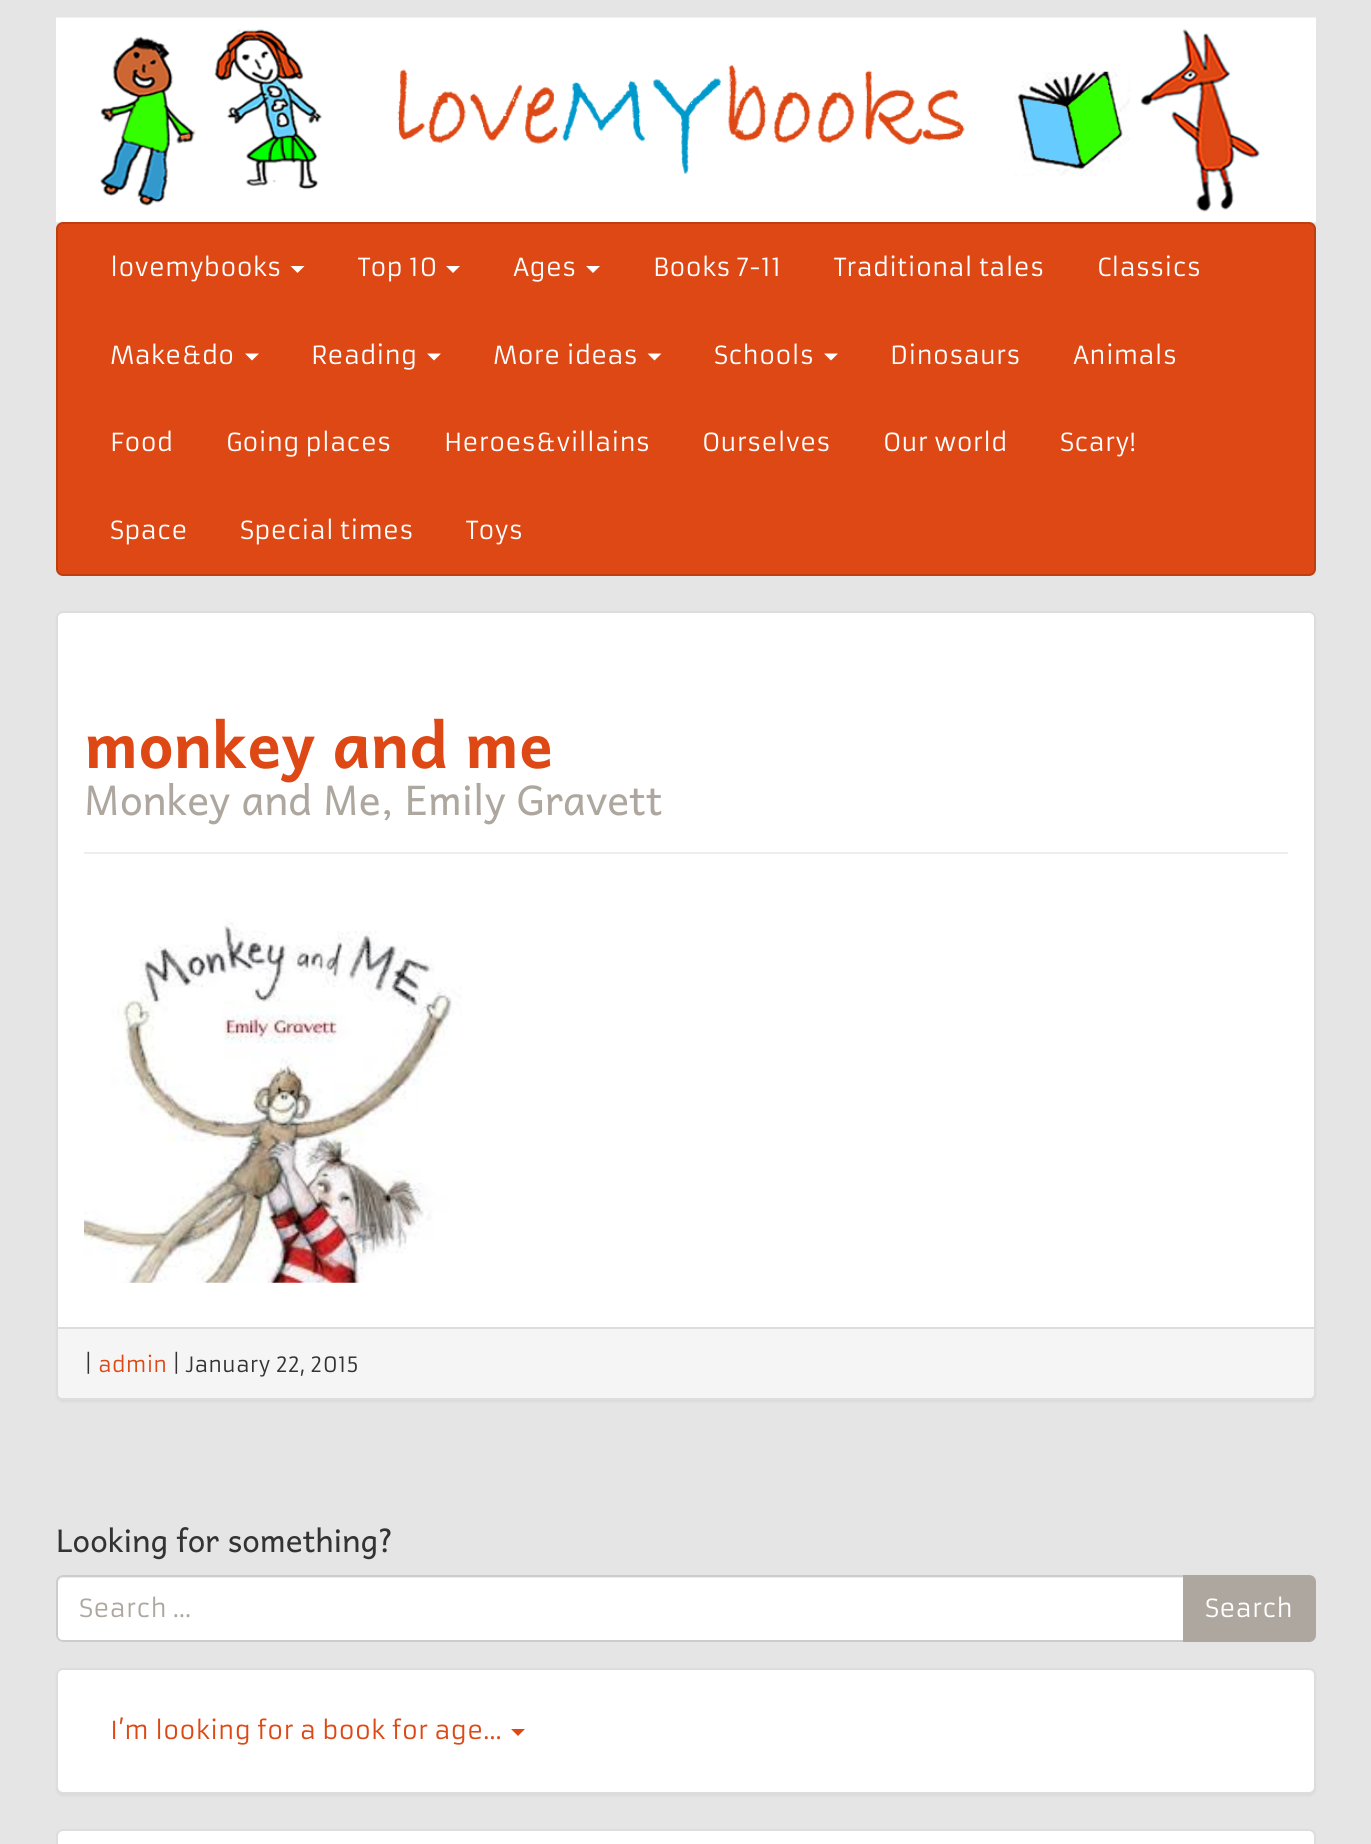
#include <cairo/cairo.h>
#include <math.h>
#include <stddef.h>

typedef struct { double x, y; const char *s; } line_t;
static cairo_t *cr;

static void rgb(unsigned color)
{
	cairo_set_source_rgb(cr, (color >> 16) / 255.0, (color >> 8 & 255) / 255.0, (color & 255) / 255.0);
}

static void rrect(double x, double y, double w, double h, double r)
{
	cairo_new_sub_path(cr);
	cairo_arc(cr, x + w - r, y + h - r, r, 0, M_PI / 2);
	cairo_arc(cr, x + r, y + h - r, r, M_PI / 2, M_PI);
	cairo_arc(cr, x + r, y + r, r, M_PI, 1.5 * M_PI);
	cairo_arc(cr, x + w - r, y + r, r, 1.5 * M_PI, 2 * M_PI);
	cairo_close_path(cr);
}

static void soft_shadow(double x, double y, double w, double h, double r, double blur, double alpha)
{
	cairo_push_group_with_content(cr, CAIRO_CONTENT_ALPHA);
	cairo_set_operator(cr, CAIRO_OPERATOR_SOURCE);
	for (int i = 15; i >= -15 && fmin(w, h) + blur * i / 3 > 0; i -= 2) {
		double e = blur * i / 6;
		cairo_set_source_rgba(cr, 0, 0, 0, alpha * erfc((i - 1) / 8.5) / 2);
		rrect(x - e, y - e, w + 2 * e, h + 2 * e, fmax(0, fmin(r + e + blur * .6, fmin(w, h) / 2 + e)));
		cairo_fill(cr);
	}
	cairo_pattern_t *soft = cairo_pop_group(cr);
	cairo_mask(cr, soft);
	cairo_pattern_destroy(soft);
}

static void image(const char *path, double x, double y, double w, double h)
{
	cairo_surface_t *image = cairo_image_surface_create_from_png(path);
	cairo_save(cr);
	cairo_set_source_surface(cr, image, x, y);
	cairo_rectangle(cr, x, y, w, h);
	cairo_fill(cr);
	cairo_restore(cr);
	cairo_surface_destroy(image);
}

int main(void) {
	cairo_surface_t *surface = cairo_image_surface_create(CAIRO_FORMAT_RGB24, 1371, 1844);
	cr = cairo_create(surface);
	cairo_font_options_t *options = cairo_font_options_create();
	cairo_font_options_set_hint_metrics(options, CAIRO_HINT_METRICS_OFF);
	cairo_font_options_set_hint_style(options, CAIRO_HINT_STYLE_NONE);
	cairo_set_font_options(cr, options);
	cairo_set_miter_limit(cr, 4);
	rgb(0xe5e5e5);
	cairo_paint(cr);
	image("img/1.png", 56, 17, 1260, 206);
	rgb(0xdd4814);
	rrect(57, 223, 1258, 352, 6);
	cairo_fill_preserve(cr);
	rgb(0xbf3e11);
	cairo_stroke(cr);
	rgb(0xffffff);
	cairo_new_path(cr);
	cairo_move_to(cr, 290.5, 266);
	cairo_line_to(cr, 304.5, 266);
	cairo_line_to(cr, 297.5, 273);
	cairo_close_path(cr);
	cairo_fill(cr);
	cairo_new_path(cr);
	cairo_move_to(cr, 446, 266);
	cairo_line_to(cr, 460, 266);
	cairo_line_to(cr, 453, 273);
	cairo_close_path(cr);
	cairo_fill(cr);
	cairo_new_path(cr);
	cairo_move_to(cr, 586, 266);
	cairo_line_to(cr, 600, 266);
	cairo_line_to(cr, 593, 273);
	cairo_close_path(cr);
	cairo_fill(cr);
	cairo_new_path(cr);
	cairo_move_to(cr, 245, 353.5);
	cairo_line_to(cr, 259, 353.5);
	cairo_line_to(cr, 252, 360.5);
	cairo_close_path(cr);
	cairo_fill(cr);
	cairo_new_path(cr);
	cairo_move_to(cr, 427, 353.5);
	cairo_line_to(cr, 441, 353.5);
	cairo_line_to(cr, 434, 360.5);
	cairo_close_path(cr);
	cairo_fill(cr);
	cairo_new_path(cr);
	cairo_move_to(cr, 647.5, 353.5);
	cairo_line_to(cr, 661.5, 353.5);
	cairo_line_to(cr, 654.5, 360.5);
	cairo_close_path(cr);
	cairo_fill(cr);
	cairo_new_path(cr);
	cairo_move_to(cr, 824, 353.5);
	cairo_line_to(cr, 838, 353.5);
	cairo_line_to(cr, 831, 360.5);
	cairo_close_path(cr);
	cairo_fill(cr);
	rgb(0x000000);
	soft_shadow(56, 613, 1260, 789, 7, 1, 0.05);
	rgb(0xffffff);
	rrect(57, 612, 1258, 787, 6);
	cairo_fill_preserve(cr);
	rgb(0xdddddd);
	cairo_stroke(cr);
	rgb(0xeeeeee);
	cairo_rectangle(cr, 84, 852, 1204, 2);
	cairo_fill(cr);
	image("img/2.png", 84, 919, 378, 364);
	rgb(0xf5f5f5);
	cairo_new_path(cr);
	cairo_move_to(cr, 58, 1327);
	cairo_line_to(cr, 1314, 1327);
	cairo_line_to(cr, 1314, 1393);
	cairo_curve_to(cr, 1314, 1396, 1312, 1398, 1309, 1398);
	cairo_line_to(cr, 63, 1398);
	cairo_curve_to(cr, 60, 1398, 58, 1396, 58, 1393);
	cairo_close_path(cr);
	cairo_fill(cr);
	rgb(0xdddddd);
	cairo_rectangle(cr, 58, 1327, 1256, 2);
	cairo_fill(cr);
	rgb(0xffffff);
	cairo_new_path(cr);
	cairo_move_to(cr, 63, 1575);
	cairo_line_to(cr, 1185, 1575);
	cairo_line_to(cr, 1185, 1642);
	cairo_line_to(cr, 63, 1642);
	cairo_curve_to(cr, 59, 1642, 56, 1639, 56, 1635);
	cairo_line_to(cr, 56, 1582);
	cairo_curve_to(cr, 56, 1578, 59, 1575, 63, 1575);
	cairo_close_path(cr);
	cairo_fill(cr);
	rgb(0xececec);
	cairo_new_path(cr);
	cairo_move_to(cr, 63, 1578);
	cairo_line_to(cr, 1183, 1578);
	cairo_line_to(cr, 1183, 1577);
	cairo_line_to(cr, 63, 1577);
	cairo_curve_to(cr, 60, 1577, 58, 1579, 58, 1582);
	cairo_line_to(cr, 58, 1584);
	cairo_curve_to(cr, 58, 1581, 60, 1578, 63, 1578);
	cairo_close_path(cr);
	cairo_fill(cr);
	cairo_new_path(cr);
	cairo_move_to(cr, 63, 1576);
	cairo_line_to(cr, 1184, 1576);
	cairo_line_to(cr, 1184, 1641);
	cairo_line_to(cr, 63, 1641);
	cairo_curve_to(cr, 59.5, 1641, 57, 1638.5, 57, 1635);
	cairo_line_to(cr, 57, 1582);
	cairo_curve_to(cr, 57, 1578.5, 59.5, 1576, 63, 1576);
	cairo_close_path(cr);
	rgb(0xcccccc);
	cairo_stroke(cr);
	rgb(0xaea79f);
	cairo_new_path(cr);
	cairo_move_to(cr, 1184, 1576);
	cairo_line_to(cr, 1309, 1576);
	cairo_curve_to(cr, 1312.5, 1576, 1315, 1578.5, 1315, 1582);
	cairo_line_to(cr, 1315, 1635);
	cairo_curve_to(cr, 1315, 1638.5, 1312.5, 1641, 1309, 1641);
	cairo_line_to(cr, 1184, 1641);
	cairo_close_path(cr);
	cairo_fill_preserve(cr);
	cairo_stroke(cr);
	rgb(0x000000);
	soft_shadow(56, 1670, 1260, 126, 7, 1, 0.05);
	rgb(0xffffff);
	rrect(57, 1669, 1258, 124, 6);
	cairo_fill_preserve(cr);
	rgb(0xdddddd);
	cairo_stroke(cr);
	rgb(0xdd4814);
	cairo_new_path(cr);
	cairo_move_to(cr, 511, 1729);
	cairo_line_to(cr, 525, 1729);
	cairo_line_to(cr, 518, 1736);
	cairo_close_path(cr);
	cairo_fill(cr);
	rgb(0xffffff);
	rrect(57, 1830, 1258, 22, 6);
	cairo_fill_preserve(cr);
	rgb(0xdddddd);
	cairo_stroke(cr);
	cairo_select_font_face(cr, "Armata", CAIRO_FONT_SLANT_NORMAL, CAIRO_FONT_WEIGHT_NORMAL);
	cairo_set_font_size(cr, 24.5);
	rgb(0xffffff);
	{
		static const line_t items[] = {
			{110, 276, "lovemybooks"},
			{358, 276, "Top 10"},
			{513, 276, "Ages"},
			{653, 276, "Books 7-11"},
			{834, 276, "Traditional tales"},
			{1097, 276, "Classics"},
			{110, 364, "Make&do"},
			{311, 364, "Reading"},
			{493, 364, "More ideas"},
			{714, 364, "Schools"},
			{890, 364, "Dinosaurs"},
			{1073, 364, "Animals"},
			{110, 451, "Food"},
			{226, 451, "Going places"},
			{444, 451, "Heroes&villains"},
			{702, 451, "Ourselves"},
			{883, 451, "Our world"},
			{1060, 451, "Scary!"},
			{110, 539, "Space"},
			{240, 539, "Special times"},
			{466, 539, "Toys"},
		};
		for (size_t i = 0; i < sizeof items / sizeof *items; i++) {
			cairo_move_to(cr, items[i].x, items[i].y);
			cairo_show_text(cr, items[i].s);
		}
	}
	cairo_select_font_face(cr, "Andika", CAIRO_FONT_SLANT_NORMAL, CAIRO_FONT_WEIGHT_BOLD);
	cairo_set_font_size(cr, 63);
	rgb(0xdd4814);
	cairo_move_to(cr, 84, 768);
	cairo_show_text(cr, "monkey and me");
	cairo_select_font_face(cr, "Andika", CAIRO_FONT_SLANT_NORMAL, CAIRO_FONT_WEIGHT_NORMAL);
	cairo_set_font_size(cr, 41);
	rgb(0xaea79f);
	cairo_move_to(cr, 84, 815);
	cairo_show_text(cr, "Monkey and Me, Emily Gravett");
	cairo_select_font_face(cr, "Armata", CAIRO_FONT_SLANT_NORMAL, CAIRO_FONT_WEIGHT_NORMAL);
	cairo_set_font_size(cr, 20.75);
	rgb(0x333333);
	cairo_move_to(cr, 84, 1372);
	cairo_show_text(cr, "|");
	rgb(0xdd4814);
	cairo_move_to(cr, 98, 1372);
	cairo_show_text(cr, "admin");
	rgb(0x333333);
	cairo_move_to(cr, 172, 1372);
	cairo_show_text(cr, "| January 22, 2015");
	cairo_select_font_face(cr, "Andika", CAIRO_FONT_SLANT_NORMAL, CAIRO_FONT_WEIGHT_NORMAL);
	cairo_set_font_size(cr, 31.5);
	cairo_move_to(cr, 56, 1552);
	cairo_show_text(cr, "Looking for something?");
	cairo_select_font_face(cr, "Armata", CAIRO_FONT_SLANT_NORMAL, CAIRO_FONT_WEIGHT_NORMAL);
	cairo_set_font_size(cr, 24.5);
	rgb(0xaea79f);
	cairo_move_to(cr, 79, 1617);
	cairo_show_text(cr, "Search …");
	rgb(0xffffff);
	cairo_move_to(cr, 1205, 1617);
	cairo_show_text(cr, "Search");
	rgb(0xdd4814);
	cairo_move_to(cr, 110, 1739);
	cairo_show_text(cr, "I’m looking for a book for age…");
	cairo_surface_write_to_png(surface, "page.png");
	cairo_font_options_destroy(options);
	cairo_destroy(cr);
	cairo_surface_destroy(surface);
	return 0;
}
